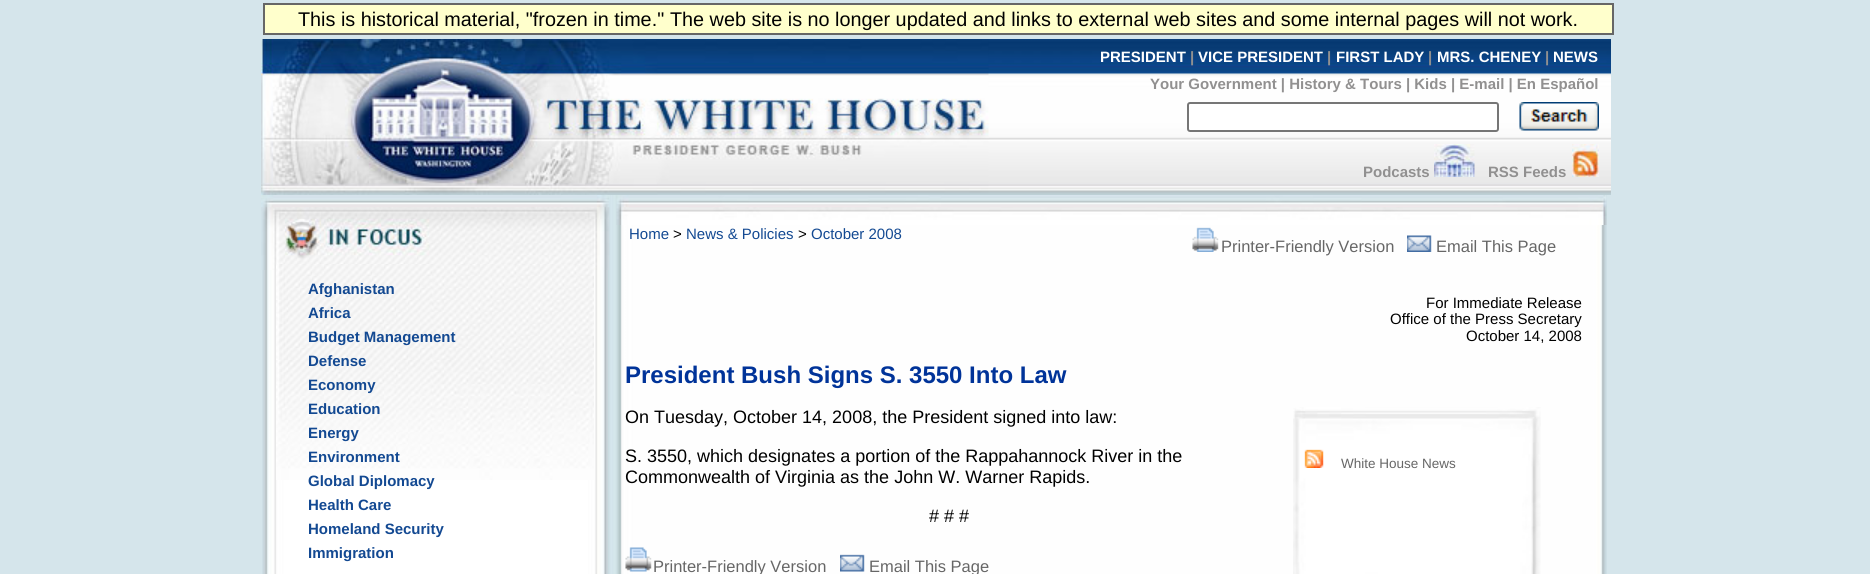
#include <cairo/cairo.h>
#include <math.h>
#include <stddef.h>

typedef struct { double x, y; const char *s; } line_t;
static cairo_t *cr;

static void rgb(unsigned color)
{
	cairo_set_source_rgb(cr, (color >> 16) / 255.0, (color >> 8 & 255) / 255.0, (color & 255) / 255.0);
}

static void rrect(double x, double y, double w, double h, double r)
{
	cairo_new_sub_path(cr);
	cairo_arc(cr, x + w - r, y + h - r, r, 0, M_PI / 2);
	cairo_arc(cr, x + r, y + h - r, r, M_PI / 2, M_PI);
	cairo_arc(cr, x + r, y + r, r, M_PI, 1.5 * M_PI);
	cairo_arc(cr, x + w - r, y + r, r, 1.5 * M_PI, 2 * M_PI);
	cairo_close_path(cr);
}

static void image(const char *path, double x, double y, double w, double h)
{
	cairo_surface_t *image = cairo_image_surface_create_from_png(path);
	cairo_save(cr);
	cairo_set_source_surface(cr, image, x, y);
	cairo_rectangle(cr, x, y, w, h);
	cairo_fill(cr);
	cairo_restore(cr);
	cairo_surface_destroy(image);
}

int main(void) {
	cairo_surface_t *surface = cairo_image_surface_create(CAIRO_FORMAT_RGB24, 1870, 574);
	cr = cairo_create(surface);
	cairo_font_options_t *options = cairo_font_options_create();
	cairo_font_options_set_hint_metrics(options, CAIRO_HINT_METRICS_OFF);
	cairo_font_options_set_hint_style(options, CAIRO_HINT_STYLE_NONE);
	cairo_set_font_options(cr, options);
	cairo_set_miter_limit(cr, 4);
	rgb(0xd5e5eb);
	cairo_paint(cr);
	rgb(0xffffcc);
	cairo_rectangle(cr, 264, 4, 1349, 30);
	cairo_fill_preserve(cr);
	rgb(0x666666);
	cairo_stroke(cr);
	image("img/1.png", 988, 39, 623, 156);
	image("img/2.png", 261, 39, 728, 156);
	rgb(0xffffff);
	rrect(1188, 103, 310, 28, 2);
	cairo_fill_preserve(cr);
	rgb(0x767676);
	cairo_stroke(cr);
	image("img/3.png", 1519, 102, 80, 29);
	image("img/4.png", 1434, 144, 41, 33);
	image("img/5.png", 1572, 144, 27, 33);
	image("img/6.png", 262, 195, 1345, 379);
	image("img/7.png", 616, 195, 991, 30);
	image("img/8.png", 264, 270, 344, 304);
	image("img/9.png", 261, 195, 349, 75);
	image("img/10.png", 276, 264, 318, 216);
	image("img/11.png", 1192, 227, 27, 25);
	image("img/12.png", 1407, 235, 25, 17);
	image("img/13.png", 1293, 407, 248, 167);
	image("img/14.png", 1304, 449, 20, 19);
	image("img/15.png", 625, 547, 27, 25);
	image("img/16.png", 840, 554, 25, 18);
	cairo_select_font_face(cr, "Liberation Sans", CAIRO_FONT_SLANT_NORMAL, CAIRO_FONT_WEIGHT_NORMAL);
	cairo_set_font_size(cr, 19.8);
	rgb(0x000000);
	cairo_move_to(cr, 298, 26);
	cairo_show_text(cr, "This is historical material, \"frozen in time.\"");
	cairo_move_to(cr, 670, 26);
	cairo_show_text(cr, "The web site is no longer updated and links to external web sites and some internal pages will not work.");
	cairo_select_font_face(cr, "Liberation Sans", CAIRO_FONT_SLANT_NORMAL, CAIRO_FONT_WEIGHT_BOLD);
	cairo_set_font_size(cr, 15);
	rgb(0xffffff);
	cairo_move_to(cr, 1100, 62);
	cairo_show_text(cr, "PRESIDENT");
	rgb(0x919090);
	cairo_move_to(cr, 1190, 62);
	cairo_show_text(cr, "|");
	rgb(0xffffff);
	cairo_move_to(cr, 1198, 62);
	cairo_show_text(cr, "VICE PRESIDENT");
	rgb(0x919090);
	cairo_move_to(cr, 1327, 62);
	cairo_show_text(cr, "|");
	rgb(0xffffff);
	cairo_move_to(cr, 1336, 62);
	cairo_show_text(cr, "FIRST LADY");
	rgb(0x919090);
	cairo_move_to(cr, 1428, 62);
	cairo_show_text(cr, "|");
	rgb(0xffffff);
	cairo_move_to(cr, 1437, 62);
	cairo_show_text(cr, "MRS. CHENEY");
	rgb(0x919090);
	cairo_move_to(cr, 1545, 62);
	cairo_show_text(cr, "|");
	rgb(0xffffff);
	cairo_move_to(cr, 1553, 62);
	cairo_show_text(cr, "NEWS");
	rgb(0x919090);
	{
		static const line_t items[] = {
			{1150, 89, "Your Government | History & Tours | Kids | E-mail | En Español"},
			{1363, 177, "Podcasts"},
			{1488, 177, "RSS Feeds"},
		};
		for (size_t i = 0; i < sizeof items / sizeof *items; i++) {
			cairo_move_to(cr, items[i].x, items[i].y);
			cairo_show_text(cr, items[i].s);
		}
	}
	rgb(0x134992);
	{
		static const line_t items[] = {
			{308, 294, "Afghanistan"},
			{308, 318, "Africa"},
			{308, 342, "Budget Management"},
			{308, 366, "Defense"},
			{308, 390, "Economy"},
			{308, 414, "Education"},
			{308, 438, "Energy"},
			{308, 462, "Environment"},
			{308, 486, "Global Diplomacy"},
			{308, 510, "Health Care"},
			{308, 534, "Homeland Security"},
			{308, 558, "Immigration"},
		};
		for (size_t i = 0; i < sizeof items / sizeof *items; i++) {
			cairo_move_to(cr, items[i].x, items[i].y);
			cairo_show_text(cr, items[i].s);
		}
	}
	cairo_select_font_face(cr, "Liberation Sans", CAIRO_FONT_SLANT_NORMAL, CAIRO_FONT_WEIGHT_NORMAL);
	cairo_move_to(cr, 629, 239);
	cairo_show_text(cr, "Home");
	rgb(0x000000);
	cairo_move_to(cr, 673, 239);
	cairo_show_text(cr, ">");
	rgb(0x134992);
	cairo_move_to(cr, 686, 239);
	cairo_show_text(cr, "News & Policies");
	rgb(0x000000);
	cairo_move_to(cr, 798, 239);
	cairo_show_text(cr, ">");
	rgb(0x134992);
	cairo_move_to(cr, 811, 239);
	cairo_show_text(cr, "October 2008");
	cairo_set_font_size(cr, 16.5);
	rgb(0x666666);
	cairo_move_to(cr, 1221, 252);
	cairo_show_text(cr, "Printer-Friendly Version");
	cairo_move_to(cr, 1436, 252);
	cairo_show_text(cr, "Email This Page");
	cairo_set_font_size(cr, 15);
	rgb(0x000000);
	{
		static const line_t items[] = {
			{1426, 308, "For Immediate Release"},
			{1390, 324, "Office of the Press Secretary"},
			{1466, 341, "October 14, 2008"},
		};
		for (size_t i = 0; i < sizeof items / sizeof *items; i++) {
			cairo_move_to(cr, items[i].x, items[i].y);
			cairo_show_text(cr, items[i].s);
		}
	}
	cairo_select_font_face(cr, "Liberation Sans", CAIRO_FONT_SLANT_NORMAL, CAIRO_FONT_WEIGHT_BOLD);
	cairo_set_font_size(cr, 24);
	rgb(0x003399);
	cairo_move_to(cr, 625, 383);
	cairo_show_text(cr, "President Bush Signs S. 3550 Into Law");
	cairo_select_font_face(cr, "Liberation Sans", CAIRO_FONT_SLANT_NORMAL, CAIRO_FONT_WEIGHT_NORMAL);
	cairo_set_font_size(cr, 18);
	rgb(0x000000);
	{
		static const line_t items[] = {
			{625, 423, "On Tuesday, October 14, 2008, the President signed into law:"},
			{625, 462, "S. 3550, which designates a portion of the Rappahannock River in the"},
			{625, 483, "Commonwealth of Virginia as the John W. Warner Rapids."},
		};
		for (size_t i = 0; i < sizeof items / sizeof *items; i++) {
			cairo_move_to(cr, items[i].x, items[i].y);
			cairo_show_text(cr, items[i].s);
		}
	}
	cairo_set_font_size(cr, 13.5);
	rgb(0x666666);
	cairo_move_to(cr, 1341, 468);
	cairo_show_text(cr, "White House News");
	cairo_set_font_size(cr, 18);
	rgb(0x000000);
	cairo_move_to(cr, 929, 522);
	cairo_show_text(cr, "# # #");
	cairo_set_font_size(cr, 16.5);
	rgb(0x666666);
	cairo_move_to(cr, 653, 572);
	cairo_show_text(cr, "Printer-Friendly Version");
	cairo_move_to(cr, 869, 572);
	cairo_show_text(cr, "Email This Page");
	cairo_surface_write_to_png(surface, "page.png");
	cairo_font_options_destroy(options);
	cairo_destroy(cr);
	cairo_surface_destroy(surface);
	return 0;
}
